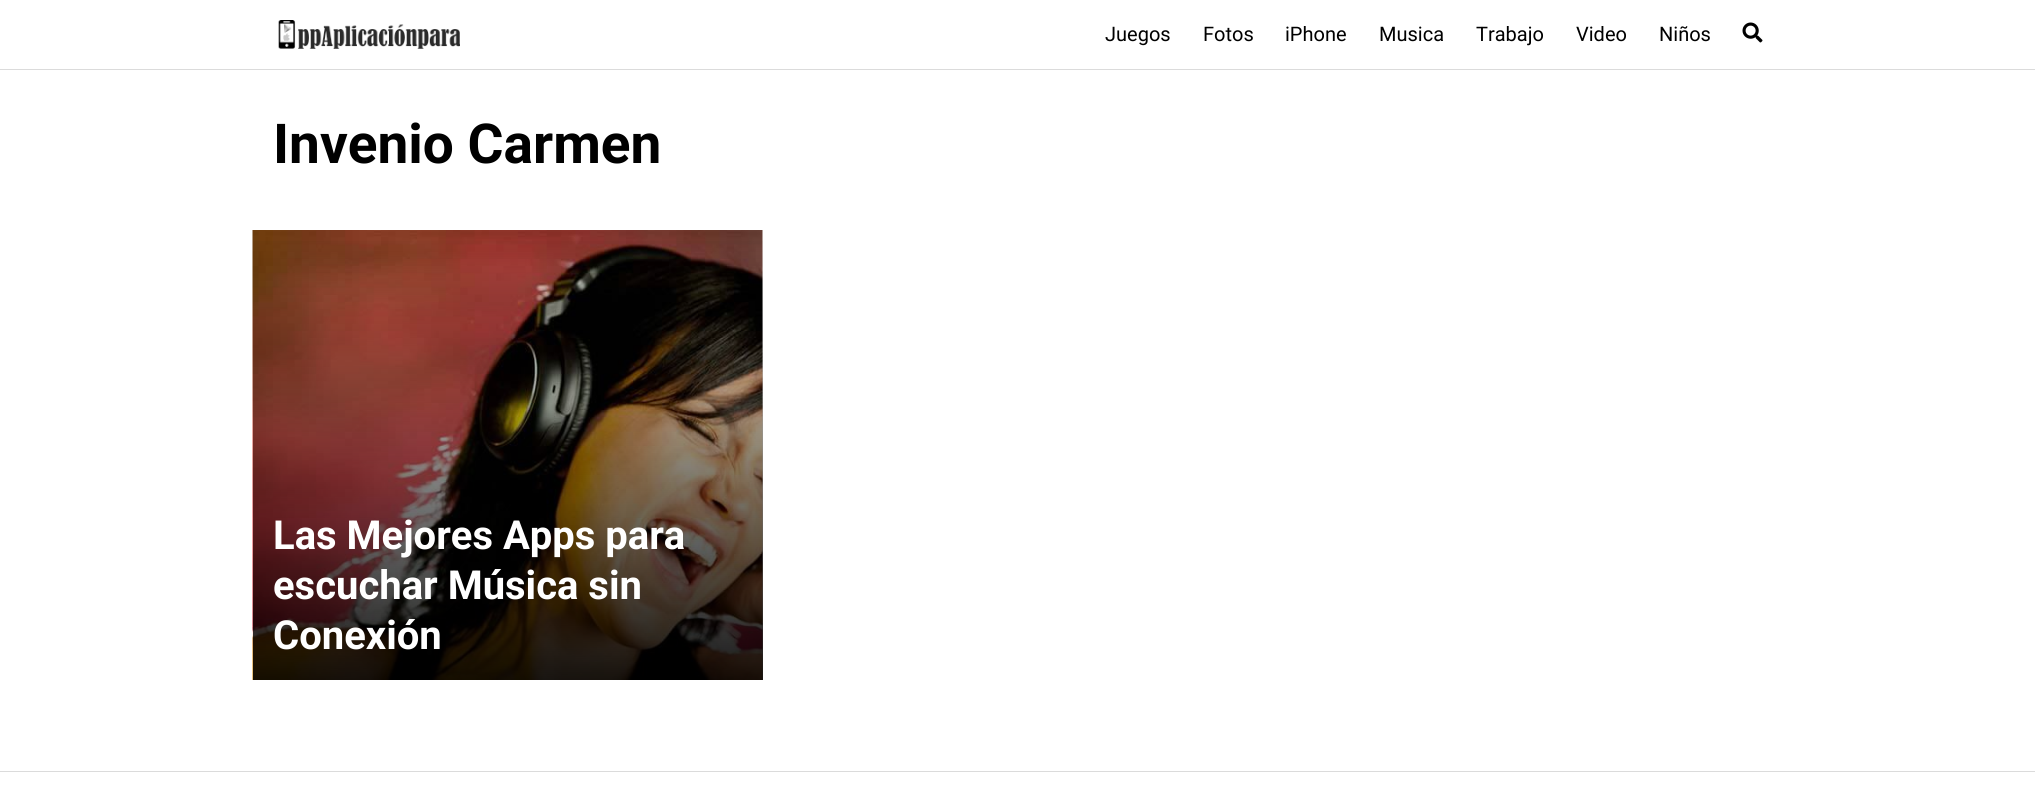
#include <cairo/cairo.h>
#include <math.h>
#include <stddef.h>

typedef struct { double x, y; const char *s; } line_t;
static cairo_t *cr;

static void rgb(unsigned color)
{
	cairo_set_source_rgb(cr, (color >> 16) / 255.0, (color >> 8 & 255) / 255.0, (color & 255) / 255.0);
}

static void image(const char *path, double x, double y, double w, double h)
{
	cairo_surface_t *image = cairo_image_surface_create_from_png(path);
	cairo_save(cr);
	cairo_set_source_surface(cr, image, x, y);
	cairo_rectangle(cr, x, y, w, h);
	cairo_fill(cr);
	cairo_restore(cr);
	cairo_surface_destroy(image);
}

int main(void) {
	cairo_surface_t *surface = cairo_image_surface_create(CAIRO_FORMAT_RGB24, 2035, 787);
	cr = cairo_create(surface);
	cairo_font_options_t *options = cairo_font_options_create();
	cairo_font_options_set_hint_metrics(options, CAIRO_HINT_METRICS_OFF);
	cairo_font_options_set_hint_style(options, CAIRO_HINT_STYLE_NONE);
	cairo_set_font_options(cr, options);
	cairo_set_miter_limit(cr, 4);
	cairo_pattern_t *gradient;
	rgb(0xffffff);
	cairo_paint(cr);
	rgb(0xdbdbdb);
	cairo_rectangle(cr, 0, 69, 2035, 1);
	cairo_fill(cr);
	image("img/1.png", 278, 20, 182, 29);
	image("img/2.png", 1742, 22, 21, 21);
	image("img/3.png", 252, 230, 511, 450);
	gradient = cairo_pattern_create_linear(508, 230, 508, 680);
	cairo_pattern_add_color_stop_rgba(gradient, 0, 0, 0, 0, 0);
	cairo_pattern_add_color_stop_rgba(gradient, 1, 0, 0, 0, 0.9);
	cairo_set_source(cr, gradient);
	cairo_pattern_destroy(gradient);
	cairo_rectangle(cr, 253, 241, 510, 439);
	cairo_fill(cr);
	rgb(0xdbdbdb);
	cairo_rectangle(cr, 0, 771, 2035, 1);
	cairo_fill(cr);
	cairo_select_font_face(cr, "Roboto", CAIRO_FONT_SLANT_NORMAL, CAIRO_FONT_WEIGHT_NORMAL);
	cairo_set_font_size(cr, 20);
	rgb(0x000000);
	{
		static const line_t items[] = {
			{1105, 41, "Juegos"},
			{1203, 41, "Fotos"},
			{1285, 41, "iPhone"},
			{1379, 41, "Musica"},
			{1476, 41, "Trabajo"},
			{1576, 41, "Video"},
			{1659, 41, "Niños"},
		};
		for (size_t i = 0; i < sizeof items / sizeof *items; i++) {
			cairo_move_to(cr, items[i].x, items[i].y);
			cairo_show_text(cr, items[i].s);
		}
	}
	cairo_select_font_face(cr, "Roboto", CAIRO_FONT_SLANT_NORMAL, CAIRO_FONT_WEIGHT_BOLD);
	cairo_set_font_size(cr, 55);
	cairo_move_to(cr, 273, 163);
	cairo_show_text(cr, "Invenio Carmen");
	cairo_set_font_size(cr, 40);
	rgb(0xffffff);
	{
		static const line_t items[] = {
			{273, 549, "Las Mejores Apps para"},
			{273, 599, "escuchar Música sin"},
			{273, 649, "Conexión"},
		};
		for (size_t i = 0; i < sizeof items / sizeof *items; i++) {
			cairo_move_to(cr, items[i].x, items[i].y);
			cairo_show_text(cr, items[i].s);
		}
	}
	cairo_surface_write_to_png(surface, "page.png");
	cairo_font_options_destroy(options);
	cairo_destroy(cr);
	cairo_surface_destroy(surface);
	return 0;
}
